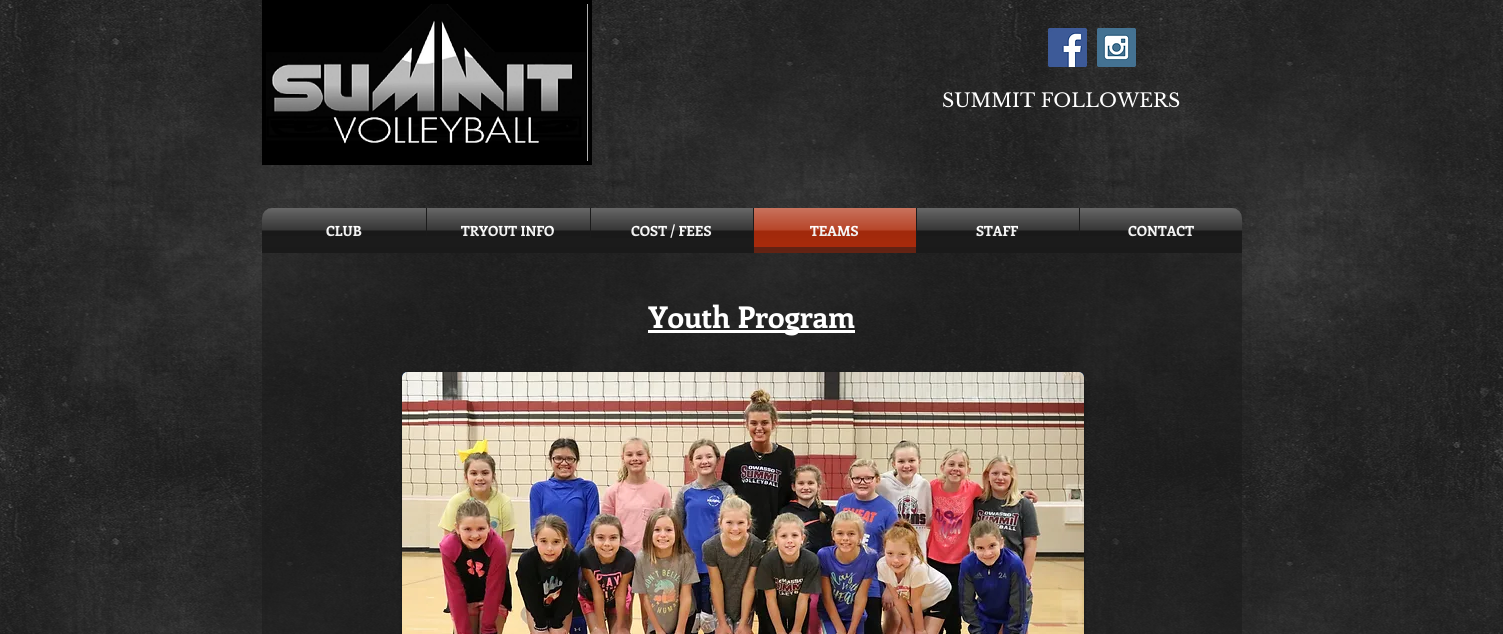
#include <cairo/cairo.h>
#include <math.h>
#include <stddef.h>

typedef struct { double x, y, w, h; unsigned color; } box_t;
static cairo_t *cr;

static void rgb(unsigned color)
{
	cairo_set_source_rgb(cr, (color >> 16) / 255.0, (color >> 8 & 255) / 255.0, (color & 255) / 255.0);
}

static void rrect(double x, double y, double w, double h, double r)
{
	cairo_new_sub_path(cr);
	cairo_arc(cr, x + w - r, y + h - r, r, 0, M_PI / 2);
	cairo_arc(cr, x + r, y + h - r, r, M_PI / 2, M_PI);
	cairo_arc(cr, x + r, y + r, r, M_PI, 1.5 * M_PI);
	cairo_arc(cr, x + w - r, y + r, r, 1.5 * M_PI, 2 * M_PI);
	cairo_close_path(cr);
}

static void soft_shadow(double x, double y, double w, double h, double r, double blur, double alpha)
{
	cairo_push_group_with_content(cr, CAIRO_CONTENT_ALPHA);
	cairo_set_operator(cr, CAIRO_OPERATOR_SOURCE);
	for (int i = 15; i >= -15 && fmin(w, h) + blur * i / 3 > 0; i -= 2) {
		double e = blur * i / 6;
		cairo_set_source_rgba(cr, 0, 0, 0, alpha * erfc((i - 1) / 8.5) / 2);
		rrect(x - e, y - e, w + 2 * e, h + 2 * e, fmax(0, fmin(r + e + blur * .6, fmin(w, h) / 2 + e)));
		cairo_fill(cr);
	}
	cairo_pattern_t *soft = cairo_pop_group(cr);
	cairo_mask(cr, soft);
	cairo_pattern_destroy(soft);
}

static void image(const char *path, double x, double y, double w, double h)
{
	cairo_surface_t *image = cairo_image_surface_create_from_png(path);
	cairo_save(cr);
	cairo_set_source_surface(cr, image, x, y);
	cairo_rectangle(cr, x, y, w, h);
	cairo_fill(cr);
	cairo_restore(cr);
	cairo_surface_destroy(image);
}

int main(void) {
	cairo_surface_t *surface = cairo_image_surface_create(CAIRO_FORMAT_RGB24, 1503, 634);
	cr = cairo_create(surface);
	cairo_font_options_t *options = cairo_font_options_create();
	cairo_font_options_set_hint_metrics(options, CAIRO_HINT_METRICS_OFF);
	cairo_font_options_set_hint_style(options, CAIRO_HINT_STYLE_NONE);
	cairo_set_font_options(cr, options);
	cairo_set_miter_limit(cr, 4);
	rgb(0x1b1b1b);
	cairo_paint(cr);
	image("img/1.png", 0, 0, 1503, 634);
	rgb(0x000000);
	cairo_rectangle(cr, 262, 0, 330, 165);
	cairo_fill(cr);
	image("img/2.png", 266, 4, 322, 157);
	image("img/3.png", 1048, 28, 39, 39);
	image("img/4.png", 1097, 28, 39, 39);
	image("img/5.png", 262, 208, 980, 10);
	rgb(0x1b1b1b);
	cairo_new_path(cr);
	cairo_move_to(cr, 272, 208);
	cairo_line_to(cr, 426, 208);
	cairo_line_to(cr, 426, 253);
	cairo_line_to(cr, 262, 253);
	cairo_line_to(cr, 262, 218);
	cairo_curve_to(cr, 262, 212.5, 266.5, 208, 272, 208);
	cairo_close_path(cr);
	cairo_fill(cr);
	{
		static const box_t items[] = {
			{426, 208, 328, 45, 0x1b1b1b},
			{754, 208, 162, 45, 0xad2c0c},
			{916, 208, 163, 45, 0x1b1b1b},
		};
		for (size_t i = 0; i < sizeof items / sizeof *items; i++) {
			rgb(items[i].color);
			cairo_rectangle(cr, items[i].x, items[i].y, items[i].w, items[i].h);
			cairo_fill(cr);
		}
	}
	cairo_new_path(cr);
	cairo_move_to(cr, 1079, 208);
	cairo_line_to(cr, 1232, 208);
	cairo_curve_to(cr, 1237.5, 208, 1242, 212.5, 1242, 218);
	cairo_line_to(cr, 1242, 253);
	cairo_line_to(cr, 1079, 253);
	cairo_close_path(cr);
	cairo_fill(cr);
	cairo_select_font_face(cr, "Libre Baskerville", CAIRO_FONT_SLANT_NORMAL, CAIRO_FONT_WEIGHT_NORMAL);
	cairo_set_font_size(cr, 19);
	rgb(0xffffff);
	cairo_move_to(cr, 942, 107);
	cairo_show_text(cr, "SUMMIT FOLLOWERS");
	cairo_select_font_face(cr, "Enriqueta", CAIRO_FONT_SLANT_NORMAL, CAIRO_FONT_WEIGHT_BOLD);
	cairo_set_font_size(cr, 14);
	cairo_move_to(cr, 326, 236);
	cairo_show_text(cr, "CLUB");
	image("img/6.png", 262, 208, 164, 28);
	cairo_move_to(cr, 461, 236);
	cairo_show_text(cr, "TRYOUT INFO");
	image("img/7.png", 427, 208, 163, 28);
	cairo_move_to(cr, 631, 236);
	cairo_show_text(cr, "COST / FEES");
	image("img/8.png", 591, 208, 162, 30);
	cairo_move_to(cr, 810, 236);
	cairo_show_text(cr, "TEAMS");
	image("img/9.png", 754, 208, 162, 43);
	cairo_move_to(cr, 976, 236);
	cairo_show_text(cr, "STAFF");
	image("img/10.png", 917, 208, 162, 28);
	cairo_move_to(cr, 1128, 236);
	cairo_show_text(cr, "CONTACT");
	image("img/11.png", 1080, 208, 162, 28);
	cairo_set_source_rgba(cr, 0.106, 0.106, 0.106, 0.5);
	cairo_rectangle(cr, 262, 247, 980, 387);
	cairo_fill(cr);
	rgb(0xffffff);
	cairo_rectangle(cr, 648, 330, 207, 3);
	cairo_fill(cr);
	cairo_set_font_size(cr, 30);
	cairo_move_to(cr, 648, 328);
	cairo_show_text(cr, "Youth Program");
	rgb(0x000000);
	soft_shadow(402, 373, 682, 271, 5, 1.5, 0.5);
	rgb(0x3364af);
	rrect(402, 372, 682, 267, 5);
	cairo_fill(cr);
	image("img/12.png", 402, 372, 682, 262);
	cairo_surface_write_to_png(surface, "page.png");
	cairo_font_options_destroy(options);
	cairo_destroy(cr);
	cairo_surface_destroy(surface);
	return 0;
}
